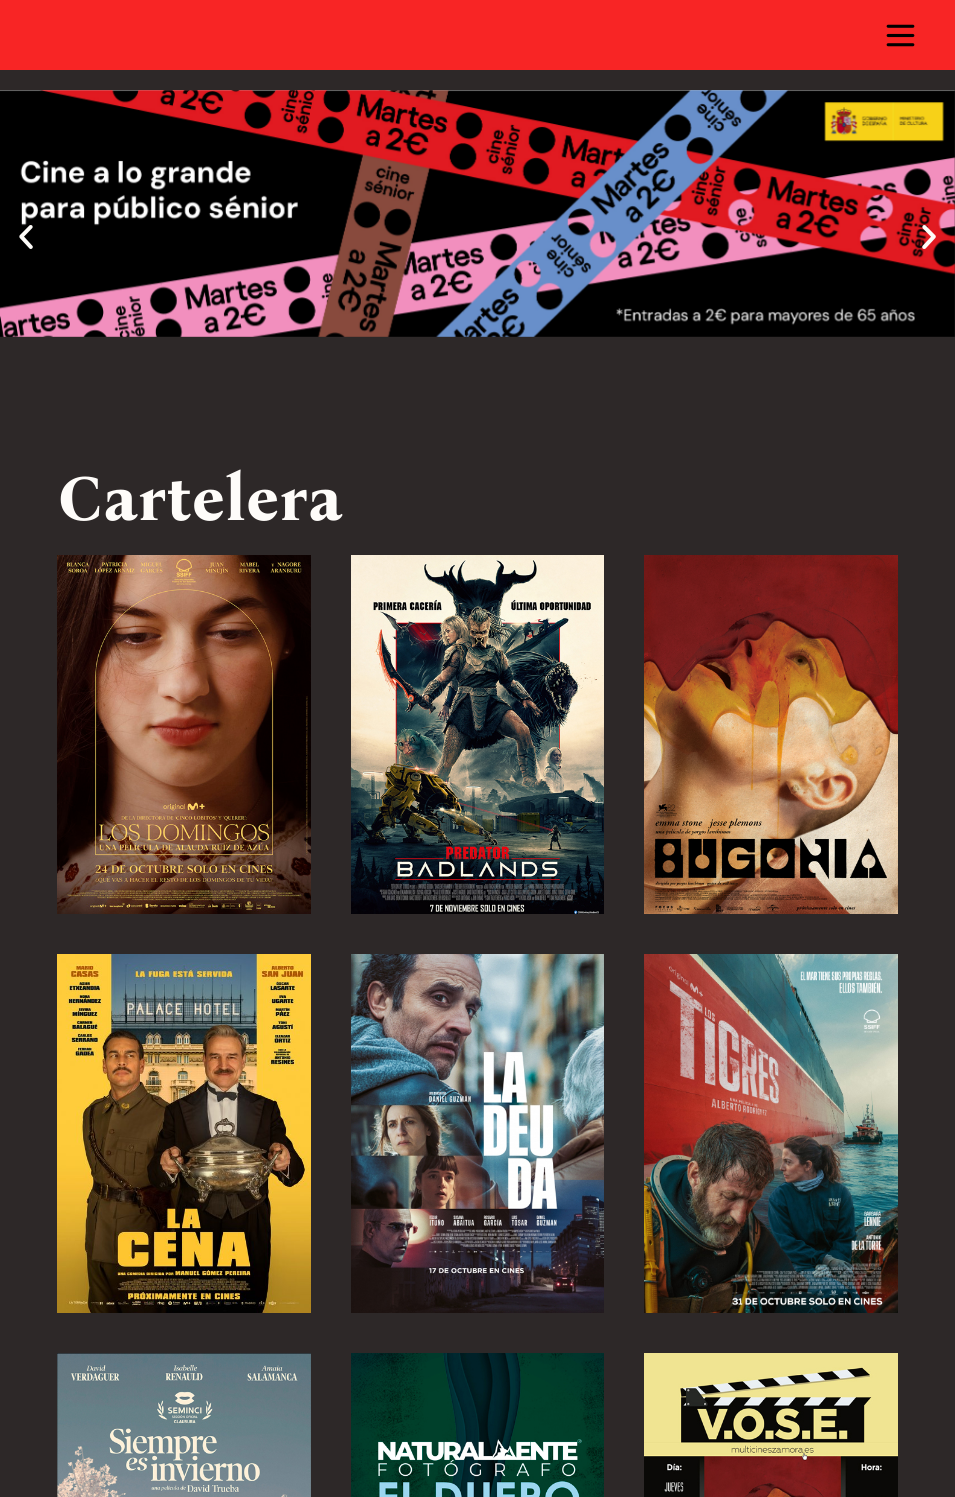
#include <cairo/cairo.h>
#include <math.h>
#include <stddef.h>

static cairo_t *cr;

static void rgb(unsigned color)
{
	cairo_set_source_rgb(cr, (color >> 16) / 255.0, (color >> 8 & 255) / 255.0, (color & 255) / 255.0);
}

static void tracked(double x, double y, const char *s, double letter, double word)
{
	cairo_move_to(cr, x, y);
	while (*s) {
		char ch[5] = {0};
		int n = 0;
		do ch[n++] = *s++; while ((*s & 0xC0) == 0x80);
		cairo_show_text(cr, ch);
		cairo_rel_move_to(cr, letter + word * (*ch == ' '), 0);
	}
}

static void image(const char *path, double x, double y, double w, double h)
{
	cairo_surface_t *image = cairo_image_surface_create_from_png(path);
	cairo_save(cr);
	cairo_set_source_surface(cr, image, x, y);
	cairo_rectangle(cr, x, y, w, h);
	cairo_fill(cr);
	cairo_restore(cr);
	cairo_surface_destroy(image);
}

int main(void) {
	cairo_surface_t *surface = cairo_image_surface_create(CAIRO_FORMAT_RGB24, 955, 1497);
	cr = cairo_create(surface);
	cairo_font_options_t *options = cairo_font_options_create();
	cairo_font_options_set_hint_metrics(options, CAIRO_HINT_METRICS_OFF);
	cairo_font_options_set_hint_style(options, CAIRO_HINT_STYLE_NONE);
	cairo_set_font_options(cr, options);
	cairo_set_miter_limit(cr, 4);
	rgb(0x2d2828);
	cairo_paint(cr);
	rgb(0xf82525);
	cairo_rectangle(cr, 0, 0, 955, 70);
	cairo_fill(cr);
	image("img/1.png", 886, 24, 29, 23);
	image("img/2.png", 0, 90, 955, 247);
	image("img/3.png", 19, 225, 14, 24);
	image("img/4.png", 922, 225, 14, 24);
	image("img/5.png", 57, 555, 254, 359);
	image("img/6.png", 351, 555, 253, 359);
	image("img/7.png", 644, 555, 254, 359);
	image("img/8.png", 57, 954, 254, 359);
	image("img/9.png", 351, 954, 253, 359);
	image("img/10.png", 644, 954, 254, 359);
	image("img/11.png", 57, 1353, 254, 144);
	image("img/12.png", 351, 1353, 253, 144);
	image("img/13.png", 644, 1353, 254, 144);
	cairo_select_font_face(cr, "Bona Nova", CAIRO_FONT_SLANT_NORMAL, CAIRO_FONT_WEIGHT_BOLD);
	cairo_set_font_size(cr, 64);
	rgb(0xfefcf9);
	tracked(57, 520, "Cartelera", 1, 0);
	cairo_surface_write_to_png(surface, "page.png");
	cairo_font_options_destroy(options);
	cairo_destroy(cr);
	cairo_surface_destroy(surface);
	return 0;
}
